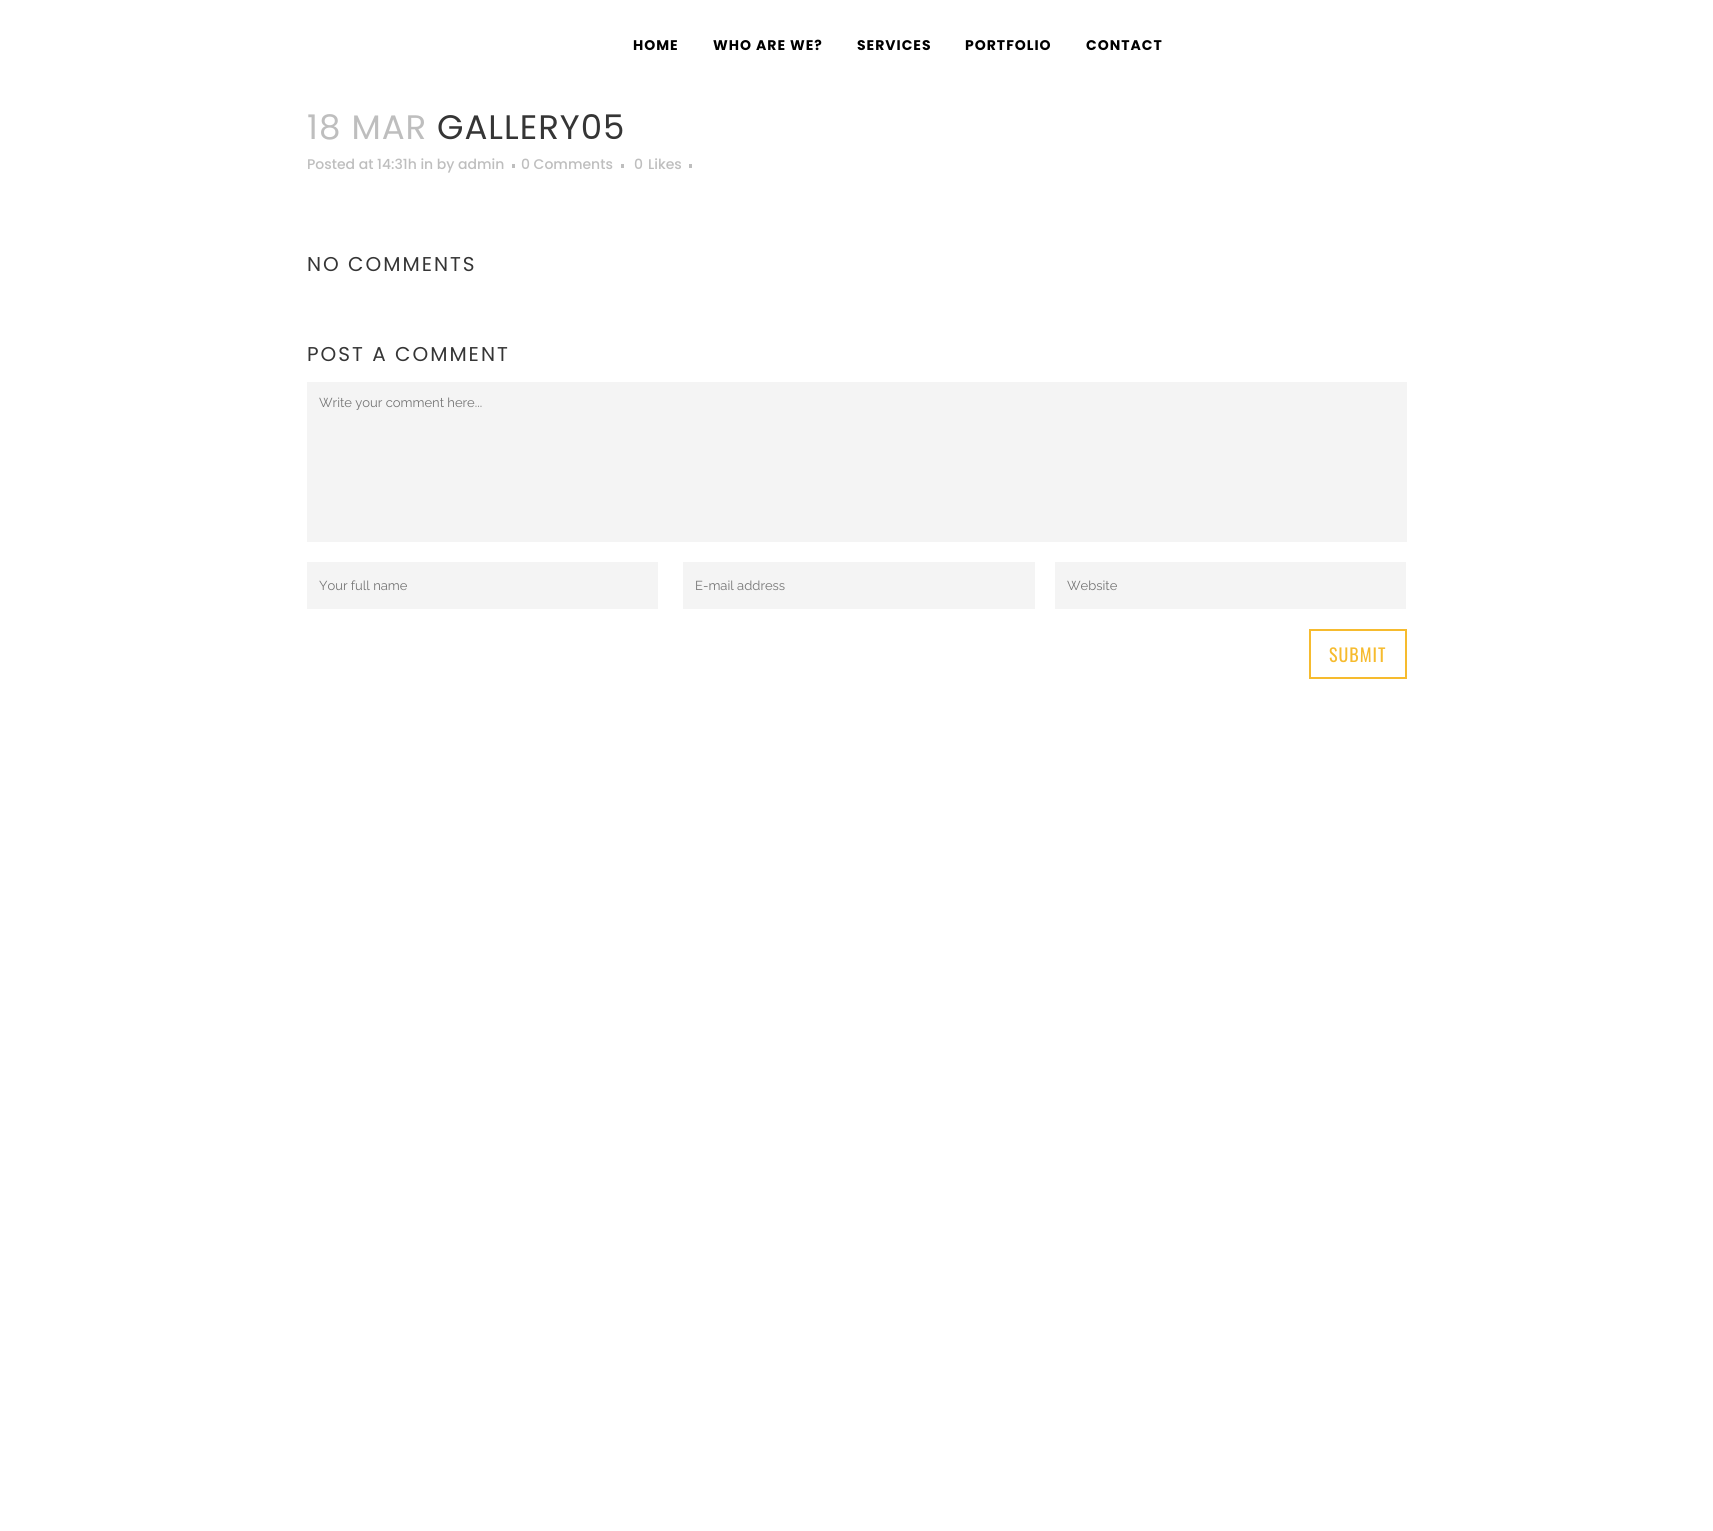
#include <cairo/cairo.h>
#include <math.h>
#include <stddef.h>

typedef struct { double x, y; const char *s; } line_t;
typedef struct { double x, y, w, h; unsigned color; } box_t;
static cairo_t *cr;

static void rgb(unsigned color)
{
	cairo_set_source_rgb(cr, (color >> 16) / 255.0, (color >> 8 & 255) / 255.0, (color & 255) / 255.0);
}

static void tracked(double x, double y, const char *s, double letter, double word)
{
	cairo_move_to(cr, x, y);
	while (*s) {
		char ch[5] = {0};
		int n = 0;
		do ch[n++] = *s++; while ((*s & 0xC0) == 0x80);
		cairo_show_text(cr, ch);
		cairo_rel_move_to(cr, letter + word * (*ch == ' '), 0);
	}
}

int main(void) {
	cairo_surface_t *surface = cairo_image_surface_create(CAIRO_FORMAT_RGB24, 1713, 1531);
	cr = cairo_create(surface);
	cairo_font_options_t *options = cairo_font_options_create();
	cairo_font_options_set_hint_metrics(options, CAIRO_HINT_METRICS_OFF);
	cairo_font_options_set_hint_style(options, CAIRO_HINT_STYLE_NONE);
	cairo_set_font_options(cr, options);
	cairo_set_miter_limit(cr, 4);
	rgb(0xffffff);
	cairo_paint(cr);
	{
		static const box_t items[] = {
			{512, 164, 3, 4, 0xbebebe},
			{621, 164, 3, 4, 0xbebebe},
			{689, 164, 3, 4, 0xbebebe},
			{307, 382, 1100, 160, 0xf4f4f4},
			{307, 562, 351, 47, 0xf4f4f4},
			{683, 562, 352, 47, 0xf4f4f4},
			{1055, 562, 351, 47, 0xf4f4f4},
		};
		for (size_t i = 0; i < sizeof items / sizeof *items; i++) {
			rgb(items[i].color);
			cairo_rectangle(cr, items[i].x, items[i].y, items[i].w, items[i].h);
			cairo_fill(cr);
		}
	}
	cairo_rectangle(cr, 1310, 630, 96, 48);
	rgb(0xf6bb2e);
	cairo_stroke(cr);
	cairo_select_font_face(cr, "Poppins", CAIRO_FONT_SLANT_NORMAL, CAIRO_FONT_WEIGHT_BOLD);
	cairo_set_font_size(cr, 14);
	rgb(0x000000);
	{
		static const line_t items[] = {
			{633, 50, "HOME"},
			{713, 50, "WHO ARE WE?"},
			{857, 50, "SERVICES"},
			{965, 50, "PORTFOLIO"},
			{1086, 50, "CONTACT"},
		};
		for (size_t i = 0; i < sizeof items / sizeof *items; i++) {
			tracked(items[i].x, items[i].y, items[i].s, 1, 0);
		}
	}
	cairo_select_font_face(cr, "Poppins", CAIRO_FONT_SLANT_NORMAL, CAIRO_FONT_WEIGHT_NORMAL);
	cairo_set_font_size(cr, 34);
	rgb(0xbebebe);
	tracked(307, 139, "18 MAR", 1, 0);
	rgb(0x353535);
	tracked(437, 139, "GALLERY05", 1, 0);
	cairo_select_font_face(cr, "Poppins Medium", CAIRO_FONT_SLANT_NORMAL, CAIRO_FONT_WEIGHT_NORMAL);
	cairo_set_font_size(cr, 14);
	rgb(0xbebebe);
	{
		static const line_t items[] = {
			{307, 169, "Posted at 14:31h in by admin"},
			{521, 169, "0 Comments"},
			{634, 169, "0"},
			{648, 169, "Likes"},
		};
		for (size_t i = 0; i < sizeof items / sizeof *items; i++) {
			cairo_move_to(cr, items[i].x, items[i].y);
			cairo_show_text(cr, items[i].s);
		}
	}
	cairo_select_font_face(cr, "Poppins", CAIRO_FONT_SLANT_NORMAL, CAIRO_FONT_WEIGHT_NORMAL);
	cairo_set_font_size(cr, 20);
	rgb(0x353535);
	tracked(307, 271, "NO COMMENTS", 2, 0);
	tracked(307, 361, "POST A COMMENT", 2, 0);
	cairo_select_font_face(cr, "Raleway", CAIRO_FONT_SLANT_NORMAL, CAIRO_FONT_WEIGHT_NORMAL);
	cairo_set_font_size(cr, 13);
	rgb(0x757575);
	{
		static const line_t items[] = {
			{319, 407, "Write your comment here..."},
			{319, 590, "Your full name"},
			{695, 590, "E-mail address"},
			{1067, 590, "Website"},
		};
		for (size_t i = 0; i < sizeof items / sizeof *items; i++) {
			cairo_move_to(cr, items[i].x, items[i].y);
			cairo_show_text(cr, items[i].s);
		}
	}
	cairo_select_font_face(cr, "Oswald", CAIRO_FONT_SLANT_NORMAL, CAIRO_FONT_WEIGHT_NORMAL);
	cairo_set_font_size(cr, 18);
	rgb(0xf6bb2e);
	tracked(1329, 662, "SUBMIT", 1, 0);
	cairo_surface_write_to_png(surface, "page.png");
	cairo_font_options_destroy(options);
	cairo_destroy(cr);
	cairo_surface_destroy(surface);
	return 0;
}
